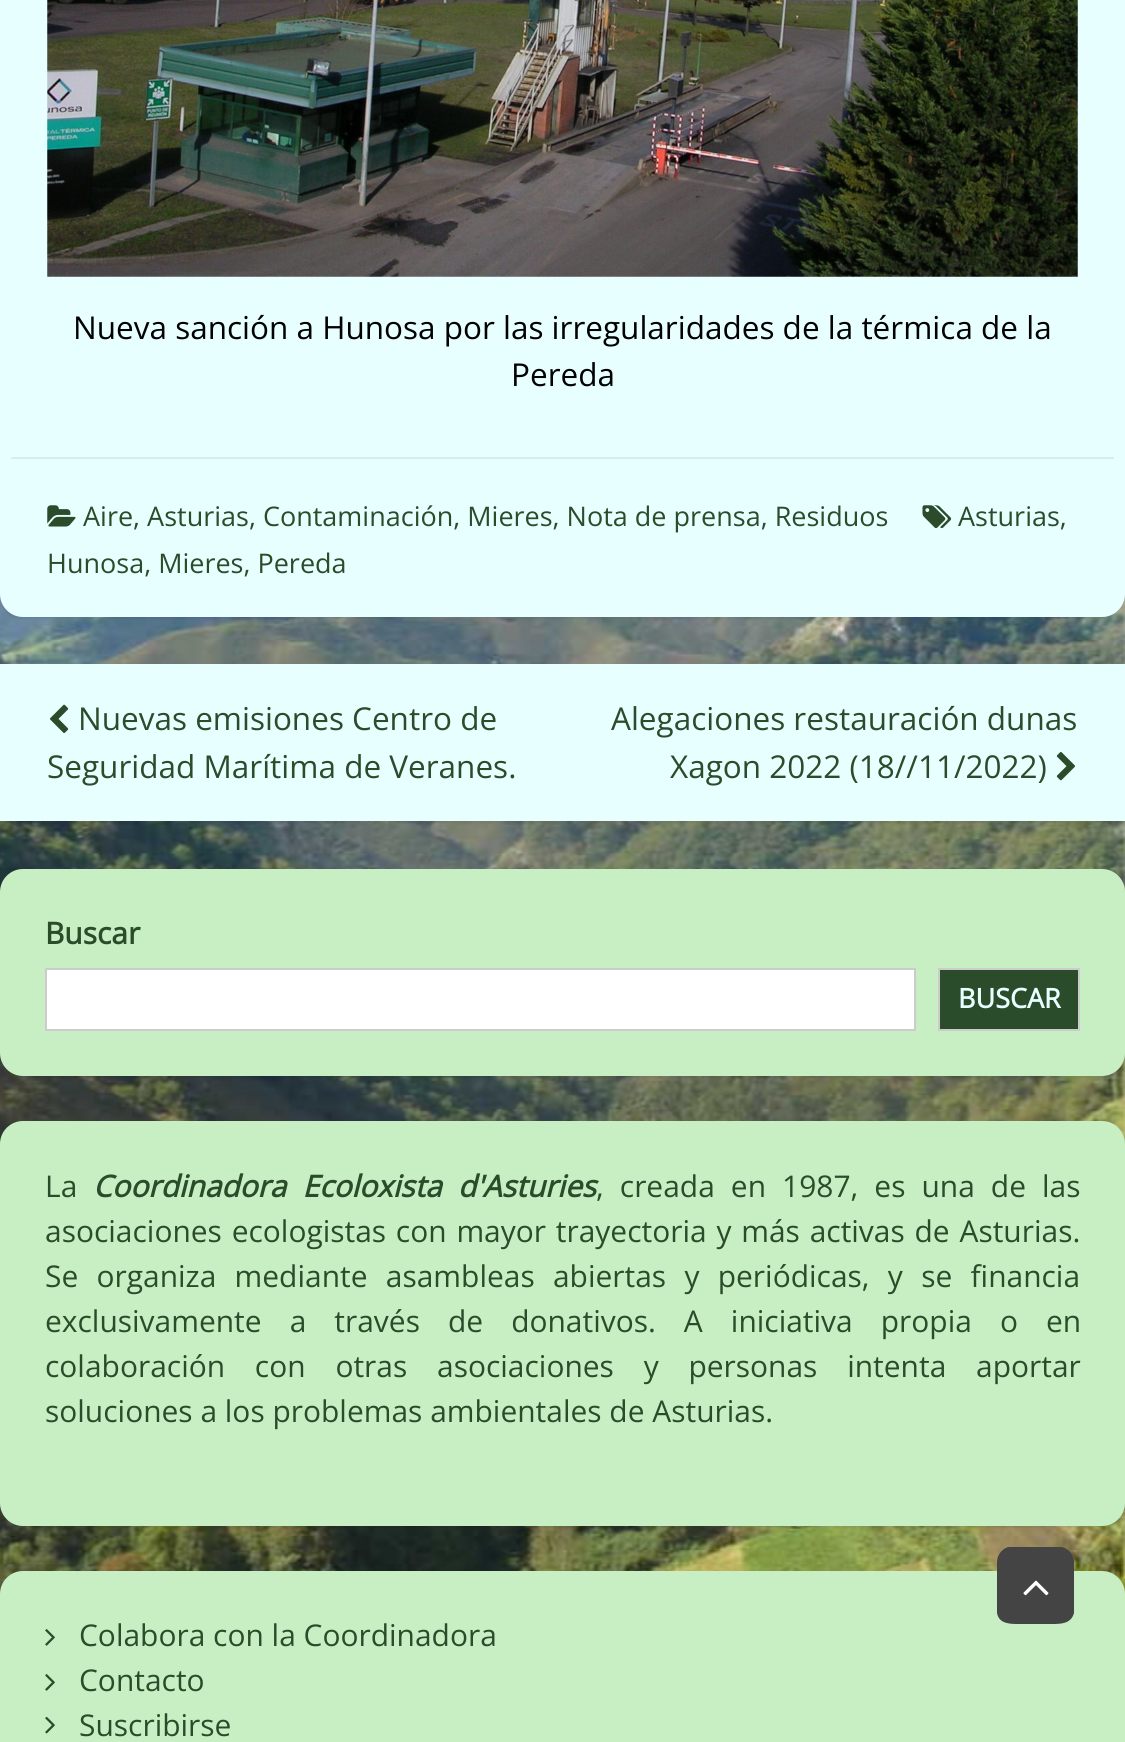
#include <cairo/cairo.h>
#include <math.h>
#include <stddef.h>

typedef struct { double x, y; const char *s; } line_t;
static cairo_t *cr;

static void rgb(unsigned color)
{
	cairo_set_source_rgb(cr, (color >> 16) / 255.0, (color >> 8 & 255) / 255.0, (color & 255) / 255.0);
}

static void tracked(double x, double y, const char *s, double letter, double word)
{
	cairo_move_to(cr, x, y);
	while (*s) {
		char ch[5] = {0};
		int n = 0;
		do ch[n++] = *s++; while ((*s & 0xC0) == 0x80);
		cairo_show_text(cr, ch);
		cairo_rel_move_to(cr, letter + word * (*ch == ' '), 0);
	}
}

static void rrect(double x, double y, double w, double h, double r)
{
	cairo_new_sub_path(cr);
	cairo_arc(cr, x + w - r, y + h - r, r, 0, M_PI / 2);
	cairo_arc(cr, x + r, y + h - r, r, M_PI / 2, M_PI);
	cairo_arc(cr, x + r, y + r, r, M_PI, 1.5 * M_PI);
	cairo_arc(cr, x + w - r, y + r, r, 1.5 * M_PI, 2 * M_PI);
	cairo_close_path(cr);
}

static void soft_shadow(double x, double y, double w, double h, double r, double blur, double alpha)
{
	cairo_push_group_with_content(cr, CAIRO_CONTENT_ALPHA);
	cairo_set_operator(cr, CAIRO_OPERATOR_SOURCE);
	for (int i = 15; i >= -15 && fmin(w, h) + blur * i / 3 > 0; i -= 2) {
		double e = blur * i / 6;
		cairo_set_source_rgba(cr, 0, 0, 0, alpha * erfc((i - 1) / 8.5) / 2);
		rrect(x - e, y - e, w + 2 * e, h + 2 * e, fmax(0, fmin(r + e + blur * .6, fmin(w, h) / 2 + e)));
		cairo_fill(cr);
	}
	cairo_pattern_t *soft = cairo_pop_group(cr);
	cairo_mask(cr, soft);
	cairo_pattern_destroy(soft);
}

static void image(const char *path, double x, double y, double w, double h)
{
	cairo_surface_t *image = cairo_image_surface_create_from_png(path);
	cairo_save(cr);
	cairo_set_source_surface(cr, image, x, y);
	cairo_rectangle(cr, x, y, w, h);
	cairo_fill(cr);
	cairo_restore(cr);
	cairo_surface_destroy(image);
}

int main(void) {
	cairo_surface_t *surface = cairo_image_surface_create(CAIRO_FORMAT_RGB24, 1125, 1742);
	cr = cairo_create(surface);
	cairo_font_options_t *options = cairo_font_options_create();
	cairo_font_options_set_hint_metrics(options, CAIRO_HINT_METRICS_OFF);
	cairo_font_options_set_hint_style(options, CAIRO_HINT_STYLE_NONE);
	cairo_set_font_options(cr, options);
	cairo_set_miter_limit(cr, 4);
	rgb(0xffffff);
	cairo_paint(cr);
	image("img/1.png", 0, 594, 1125, 1000);
	rgb(0x000000);
	soft_shadow(0, -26, 1125, 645, 23, 1, 0.06);
	rgb(0xe8ffff);
	rrect(0, -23, 1125, 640, 23);
	cairo_fill(cr);
	image("img/2.png", 47, 0, 1031, 277);
	rgb(0xd8eded);
	cairo_rectangle(cr, 11, 457, 1103, 2);
	cairo_fill(cr);
	image("img/3.png", 47, 505, 29, 22);
	image("img/4.png", 922, 505, 30, 24);
	rgb(0x000000);
	soft_shadow(0, 666, 1125, 158, 0, 1, 0.06);
	rgb(0xe8ffff);
	cairo_rectangle(cr, 0, 664, 1125, 157);
	cairo_fill(cr);
	image("img/5.png", 50, 704, 19, 29);
	image("img/6.png", 1056, 752, 19, 29);
	rgb(0x000000);
	soft_shadow(0, 871, 1125, 207, 23, 1, 0.06);
	rgb(0xc8eec4);
	rrect(0, 869, 1125, 207, 23);
	cairo_fill(cr);
	rgb(0xffffff);
	cairo_rectangle(cr, 46, 969, 869, 61);
	cairo_fill_preserve(cr);
	rgb(0xcccccc);
	cairo_stroke(cr);
	rgb(0x2b4c2a);
	cairo_rectangle(cr, 939, 969, 140, 61);
	cairo_fill_preserve(cr);
	rgb(0xcccccc);
	cairo_stroke(cr);
	rgb(0x000000);
	soft_shadow(0, 1123, 1125, 405, 23, 1, 0.06);
	rgb(0xc8eec4);
	rrect(0, 1121, 1125, 405, 23);
	cairo_fill(cr);
	rrect(0, 1571, 1125, 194, 23);
	cairo_fill(cr);
	image("img/7.png", 45, 1629, 10, 17);
	image("img/7.png", 45, 1674, 10, 17);
	image("img/8.png", 45, 1716, 10, 18);
	rgb(0x444444);
	cairo_new_path(cr);
	cairo_move_to(cr, 1074, 1562);
	cairo_line_to(cr, 1074, 1613);
	cairo_curve_to(cr, 1071, 1624, 1061, 1624, 1051, 1624);
	cairo_line_to(cr, 1019, 1624);
	cairo_curve_to(cr, 1010, 1624, 999, 1624, 997, 1613);
	cairo_line_to(cr, 997, 1562);
	cairo_curve_to(cr, 997, 1555, 1002, 1549, 1008, 1547);
	cairo_line_to(cr, 1062, 1547);
	cairo_curve_to(cr, 1069, 1549, 1074, 1555, 1074, 1562);
	cairo_close_path(cr);
	cairo_fill(cr);
	image("img/9.png", 1023, 1580, 26, 16);
	cairo_select_font_face(cr, "Open Sans", CAIRO_FONT_SLANT_NORMAL, CAIRO_FONT_WEIGHT_NORMAL);
	cairo_set_font_size(cr, 31.5);
	rgb(0x000000);
	cairo_move_to(cr, 73, 339);
	cairo_show_text(cr, "Nueva sanción a Hunosa por las irregularidades de la térmica de la");
	cairo_move_to(cr, 511, 386);
	cairo_show_text(cr, "Pereda");
	cairo_set_font_size(cr, 27);
	rgb(0x2b4c2a);
	{
		static const line_t items[] = {
			{83, 526, "Aire, Asturias, Contaminación, Mieres, Nota de prensa, Residuos"},
			{958, 526, "Asturias,"},
			{47, 573, "Hunosa, Mieres, Pereda"},
		};
		for (size_t i = 0; i < sizeof items / sizeof *items; i++) {
			cairo_move_to(cr, items[i].x, items[i].y);
			cairo_show_text(cr, items[i].s);
		}
	}
	cairo_set_font_size(cr, 31.5);
	{
		static const line_t items[] = {
			{78, 730, "Nuevas emisiones Centro de"},
			{47, 778, "Seguridad Marítima de Veranes."},
			{611, 730, "Alegaciones restauración dunas"},
			{670, 778, "Xagon 2022 (18//11/2022)"},
		};
		for (size_t i = 0; i < sizeof items / sizeof *items; i++) {
			cairo_move_to(cr, items[i].x, items[i].y);
			cairo_show_text(cr, items[i].s);
		}
	}
	cairo_select_font_face(cr, "Open Sans", CAIRO_FONT_SLANT_NORMAL, CAIRO_FONT_WEIGHT_BOLD);
	cairo_set_font_size(cr, 29.95);
	cairo_move_to(cr, 45, 944);
	cairo_show_text(cr, "Buscar");
	cairo_set_font_size(cr, 27);
	rgb(0xe8ffff);
	cairo_move_to(cr, 958, 1008);
	cairo_show_text(cr, "BUSCAR");
	cairo_select_font_face(cr, "Open Sans", CAIRO_FONT_SLANT_NORMAL, CAIRO_FONT_WEIGHT_NORMAL);
	cairo_set_font_size(cr, 29.95);
	rgb(0x2b4c2a);
	cairo_move_to(cr, 45, 1197);
	cairo_show_text(cr, "La");
	cairo_select_font_face(cr, "Open Sans", CAIRO_FONT_SLANT_ITALIC, CAIRO_FONT_WEIGHT_BOLD);
	tracked(93, 1197, "Coordinadora Ecoloxista d'Asturies", 0, 8.25);
	cairo_select_font_face(cr, "Open Sans", CAIRO_FONT_SLANT_NORMAL, CAIRO_FONT_WEIGHT_NORMAL);
	tracked(596, 1197, ", creada en 1987, es una de las", 0, 8.25);
	tracked(45, 1242, "asociaciones ecologistas con mayor trayectoria y más activas de Asturias.", 0, 2);
	tracked(45, 1287, "Se organiza mediante asambleas abiertas y periódicas, y se financia", 0, 10.5);
	tracked(45, 1332, "exclusivamente a través de donativos. A iniciativa propia o en", 0, 20.25);
	tracked(45, 1377, "colaboración con otras asociaciones y personas intenta aportar", 0, 22);
	{
		static const line_t items[] = {
			{45, 1422, "soluciones a los problemas ambientales de Asturias."},
			{79, 1646, "Colabora con la Coordinadora"},
			{79, 1691, "Contacto"},
			{79, 1736, "Suscribirse"},
		};
		for (size_t i = 0; i < sizeof items / sizeof *items; i++) {
			cairo_move_to(cr, items[i].x, items[i].y);
			cairo_show_text(cr, items[i].s);
		}
	}
	cairo_surface_write_to_png(surface, "page.png");
	cairo_font_options_destroy(options);
	cairo_destroy(cr);
	cairo_surface_destroy(surface);
	return 0;
}
